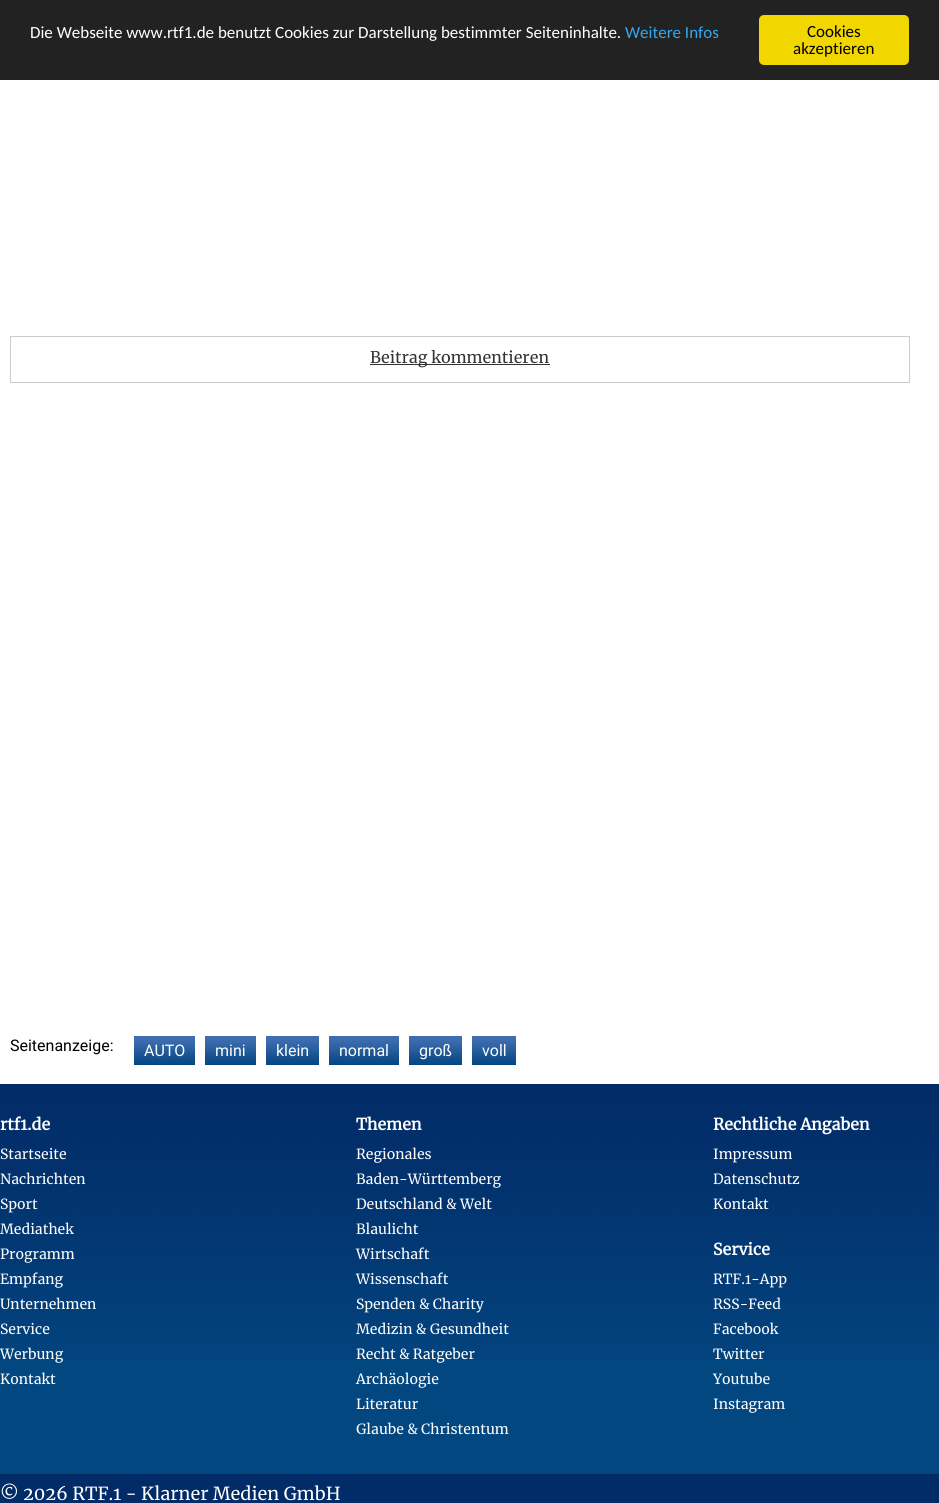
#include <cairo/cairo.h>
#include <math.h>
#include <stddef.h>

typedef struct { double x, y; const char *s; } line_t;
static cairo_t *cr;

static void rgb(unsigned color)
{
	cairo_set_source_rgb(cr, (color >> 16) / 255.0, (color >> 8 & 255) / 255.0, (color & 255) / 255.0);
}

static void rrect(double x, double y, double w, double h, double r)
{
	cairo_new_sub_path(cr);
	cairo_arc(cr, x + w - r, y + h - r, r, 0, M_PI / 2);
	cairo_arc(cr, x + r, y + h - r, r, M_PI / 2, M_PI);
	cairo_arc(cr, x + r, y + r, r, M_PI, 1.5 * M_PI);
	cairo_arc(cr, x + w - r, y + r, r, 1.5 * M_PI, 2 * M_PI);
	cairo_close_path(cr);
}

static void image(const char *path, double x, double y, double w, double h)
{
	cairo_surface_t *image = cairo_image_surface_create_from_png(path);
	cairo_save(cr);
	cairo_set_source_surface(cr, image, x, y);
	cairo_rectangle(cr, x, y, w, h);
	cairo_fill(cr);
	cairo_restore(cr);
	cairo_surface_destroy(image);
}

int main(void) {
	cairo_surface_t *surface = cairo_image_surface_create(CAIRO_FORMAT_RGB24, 939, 1503);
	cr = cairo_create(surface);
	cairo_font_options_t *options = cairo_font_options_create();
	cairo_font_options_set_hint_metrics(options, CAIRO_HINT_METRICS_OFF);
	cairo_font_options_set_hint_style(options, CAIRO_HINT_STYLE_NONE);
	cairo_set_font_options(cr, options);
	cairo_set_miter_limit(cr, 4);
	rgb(0xffffff);
	cairo_paint(cr);
	rgb(0x222222);
	cairo_rectangle(cr, 0, 0, 939, 80);
	cairo_fill(cr);
	rgb(0xf1d600);
	rrect(759, 15, 150, 50, 5);
	cairo_fill(cr);
	cairo_rectangle(cr, 10.5, 336.5, 899, 46);
	rgb(0xcccccc);
	cairo_set_line_width(cr, 1);
	cairo_stroke(cr);
	rgb(0x333333);
	cairo_rectangle(cr, 370, 364, 180, 1);
	cairo_fill(cr);
	rgb(0x034781);
	cairo_rectangle(cr, 134, 1064, 61, 1);
	cairo_fill(cr);
	image("img/1.png", 134, 1036, 61, 28);
	cairo_rectangle(cr, 205, 1064, 51, 1);
	cairo_fill(cr);
	image("img/2.png", 205, 1036, 51, 28);
	cairo_rectangle(cr, 266, 1064, 53, 1);
	cairo_fill(cr);
	image("img/3.png", 266, 1036, 53, 28);
	cairo_rectangle(cr, 329, 1064, 70, 1);
	cairo_fill(cr);
	image("img/4.png", 329, 1036, 70, 28);
	cairo_rectangle(cr, 409, 1064, 53, 1);
	cairo_fill(cr);
	image("img/3.png", 409, 1036, 53, 28);
	cairo_rectangle(cr, 472, 1064, 44, 1);
	cairo_fill(cr);
	image("img/5.png", 472, 1036, 44, 28);
	cairo_rectangle(cr, 0, 1360, 939, 114);
	cairo_fill(cr);
	image("img/6.png", 0, 1084, 939, 276);
	rgb(0x022c68);
	cairo_rectangle(cr, 0, 1474, 939, 29);
	cairo_fill(cr);
	cairo_select_font_face(cr, "Carlito", CAIRO_FONT_SLANT_NORMAL, CAIRO_FONT_WEIGHT_NORMAL);
	cairo_set_font_size(cr, 17);
	rgb(0xffffff);
	cairo_move_to(cr, 30, 38);
	cairo_show_text(cr, "Die Webseite www.rtf1.de benutzt Cookies zur Darstellung bestimmter Seiteninhalte.");
	rgb(0x31a8f0);
	cairo_move_to(cr, 625, 38);
	cairo_show_text(cr, "Weitere Infos");
	rgb(0x000000);
	cairo_move_to(cr, 807, 37);
	cairo_show_text(cr, "Cookies");
	cairo_move_to(cr, 793, 54);
	cairo_show_text(cr, "akzeptieren");
	cairo_select_font_face(cr, "Merriweather", CAIRO_FONT_SLANT_NORMAL, CAIRO_FONT_WEIGHT_NORMAL);
	cairo_set_font_size(cr, 16);
	rgb(0x333333);
	cairo_move_to(cr, 370, 363);
	cairo_show_text(cr, "Beitrag kommentieren");
	cairo_select_font_face(cr, "Roboto", CAIRO_FONT_SLANT_NORMAL, CAIRO_FONT_WEIGHT_NORMAL);
	rgb(0x000000);
	cairo_move_to(cr, 10, 1051);
	cairo_show_text(cr, "Seitenanzeige:");
	rgb(0xffffff);
	{
		static const line_t items[] = {
			{144, 1056, "AUTO"},
			{215, 1056, "mini"},
			{276, 1056, "klein"},
			{339, 1056, "normal"},
			{419, 1056, "groß"},
			{482, 1056, "voll"},
		};
		for (size_t i = 0; i < sizeof items / sizeof *items; i++) {
			cairo_move_to(cr, items[i].x, items[i].y);
			cairo_show_text(cr, items[i].s);
		}
	}
	cairo_select_font_face(cr, "Merriweather", CAIRO_FONT_SLANT_NORMAL, CAIRO_FONT_WEIGHT_BOLD);
	cairo_move_to(cr, 0, 1130);
	cairo_show_text(cr, "rtf1.de");
	cairo_select_font_face(cr, "Merriweather", CAIRO_FONT_SLANT_NORMAL, CAIRO_FONT_WEIGHT_NORMAL);
	cairo_set_font_size(cr, 14);
	{
		static const line_t items[] = {
			{0, 1159, "Startseite"},
			{0, 1184, "Nachrichten"},
			{0, 1209, "Sport"},
			{0, 1234, "Mediathek"},
			{0, 1259, "Programm"},
			{0, 1284, "Empfang"},
			{0, 1309, "Unternehmen"},
			{0, 1334, "Service"},
			{0, 1359, "Werbung"},
			{0, 1384, "Kontakt"},
		};
		for (size_t i = 0; i < sizeof items / sizeof *items; i++) {
			cairo_move_to(cr, items[i].x, items[i].y);
			cairo_show_text(cr, items[i].s);
		}
	}
	cairo_select_font_face(cr, "Merriweather", CAIRO_FONT_SLANT_NORMAL, CAIRO_FONT_WEIGHT_BOLD);
	cairo_set_font_size(cr, 16);
	cairo_move_to(cr, 356, 1130);
	cairo_show_text(cr, "Themen");
	cairo_select_font_face(cr, "Merriweather", CAIRO_FONT_SLANT_NORMAL, CAIRO_FONT_WEIGHT_NORMAL);
	cairo_set_font_size(cr, 14);
	{
		static const line_t items[] = {
			{356, 1159, "Regionales"},
			{356, 1184, "Baden-Württemberg"},
			{356, 1209, "Deutschland & Welt"},
			{356, 1234, "Blaulicht"},
			{356, 1259, "Wirtschaft"},
			{356, 1284, "Wissenschaft"},
			{356, 1309, "Spenden & Charity"},
			{356, 1334, "Medizin & Gesundheit"},
			{356, 1359, "Recht & Ratgeber"},
			{356, 1384, "Archäologie"},
			{356, 1409, "Literatur"},
			{356, 1434, "Glaube & Christentum"},
		};
		for (size_t i = 0; i < sizeof items / sizeof *items; i++) {
			cairo_move_to(cr, items[i].x, items[i].y);
			cairo_show_text(cr, items[i].s);
		}
	}
	cairo_select_font_face(cr, "Merriweather", CAIRO_FONT_SLANT_NORMAL, CAIRO_FONT_WEIGHT_BOLD);
	cairo_set_font_size(cr, 16);
	cairo_move_to(cr, 713, 1130);
	cairo_show_text(cr, "Rechtliche Angaben");
	cairo_select_font_face(cr, "Merriweather", CAIRO_FONT_SLANT_NORMAL, CAIRO_FONT_WEIGHT_NORMAL);
	cairo_set_font_size(cr, 14);
	{
		static const line_t items[] = {
			{713, 1159, "Impressum"},
			{713, 1184, "Datenschutz"},
			{713, 1209, "Kontakt"},
		};
		for (size_t i = 0; i < sizeof items / sizeof *items; i++) {
			cairo_move_to(cr, items[i].x, items[i].y);
			cairo_show_text(cr, items[i].s);
		}
	}
	cairo_select_font_face(cr, "Merriweather", CAIRO_FONT_SLANT_NORMAL, CAIRO_FONT_WEIGHT_BOLD);
	cairo_set_font_size(cr, 16);
	cairo_move_to(cr, 713, 1255);
	cairo_show_text(cr, "Service");
	cairo_select_font_face(cr, "Merriweather", CAIRO_FONT_SLANT_NORMAL, CAIRO_FONT_WEIGHT_NORMAL);
	cairo_set_font_size(cr, 14);
	{
		static const line_t items[] = {
			{713, 1284, "RTF.1-App"},
			{713, 1309, "RSS-Feed"},
			{713, 1334, "Facebook"},
			{713, 1359, "Twitter"},
			{713, 1384, "Youtube"},
			{713, 1409, "Instagram"},
		};
		for (size_t i = 0; i < sizeof items / sizeof *items; i++) {
			cairo_move_to(cr, items[i].x, items[i].y);
			cairo_show_text(cr, items[i].s);
		}
	}
	cairo_set_font_size(cr, 18);
	cairo_move_to(cr, 0, 1500);
	cairo_show_text(cr, "© 2026 RTF.1 - Klarner Medien GmbH");
	cairo_surface_write_to_png(surface, "page.png");
	cairo_font_options_destroy(options);
	cairo_destroy(cr);
	cairo_surface_destroy(surface);
	return 0;
}
